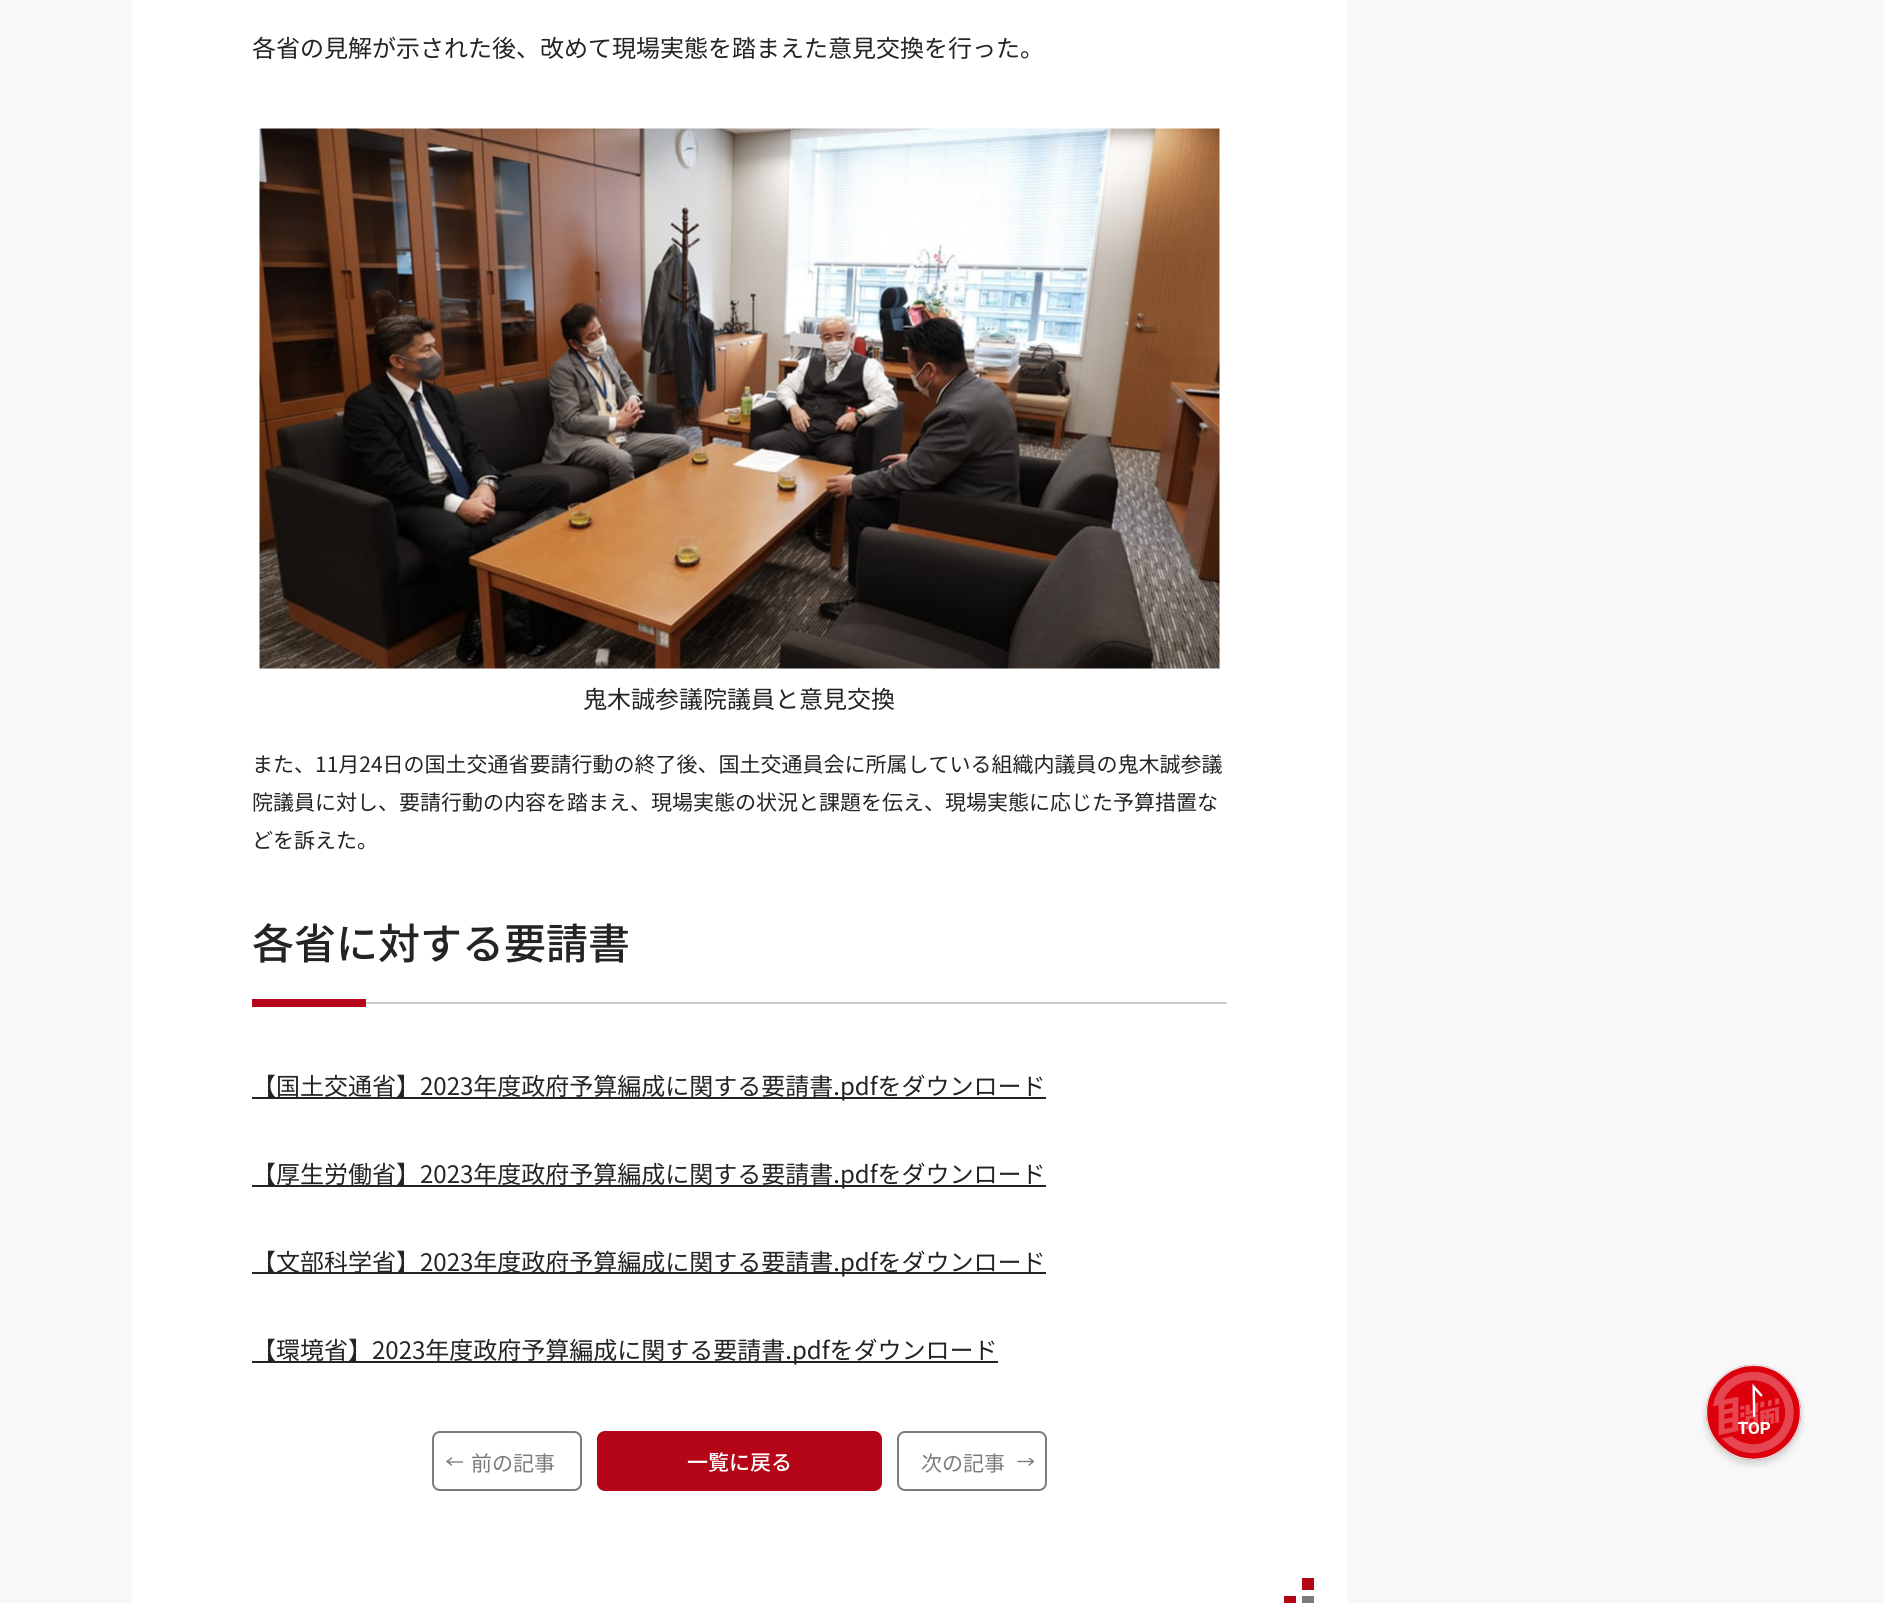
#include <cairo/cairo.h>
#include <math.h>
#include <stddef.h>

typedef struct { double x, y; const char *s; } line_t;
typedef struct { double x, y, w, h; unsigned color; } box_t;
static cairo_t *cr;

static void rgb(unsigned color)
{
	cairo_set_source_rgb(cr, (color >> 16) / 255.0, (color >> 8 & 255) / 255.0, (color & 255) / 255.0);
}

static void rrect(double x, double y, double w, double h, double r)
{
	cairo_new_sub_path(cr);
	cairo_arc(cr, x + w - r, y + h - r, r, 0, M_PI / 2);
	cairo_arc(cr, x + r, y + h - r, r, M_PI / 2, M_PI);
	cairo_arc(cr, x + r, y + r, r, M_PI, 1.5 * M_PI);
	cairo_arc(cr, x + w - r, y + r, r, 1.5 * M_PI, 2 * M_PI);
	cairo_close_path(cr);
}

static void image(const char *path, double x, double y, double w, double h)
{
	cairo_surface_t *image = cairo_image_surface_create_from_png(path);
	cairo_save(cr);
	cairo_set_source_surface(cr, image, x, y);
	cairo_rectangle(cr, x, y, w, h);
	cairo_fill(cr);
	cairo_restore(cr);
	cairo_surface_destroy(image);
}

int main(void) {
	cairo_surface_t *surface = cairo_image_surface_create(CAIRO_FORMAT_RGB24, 1884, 1603);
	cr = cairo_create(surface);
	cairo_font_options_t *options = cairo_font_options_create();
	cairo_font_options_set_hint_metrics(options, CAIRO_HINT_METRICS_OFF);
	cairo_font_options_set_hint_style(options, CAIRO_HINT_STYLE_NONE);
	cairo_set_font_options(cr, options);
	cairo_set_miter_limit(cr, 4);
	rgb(0xf8f8f8);
	cairo_paint(cr);
	rgb(0xffffff);
	rrect(132, -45, 1215, 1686, 45);
	cairo_fill(cr);
	image("img/1.png", 259, 128, 961, 541);
	{
		static const box_t items[] = {
			{366, 1002, 861, 2, 0xcccccc},
			{252, 999, 114, 8, 0xb50618},
			{252, 1097, 794, 2, 0x242424},
			{252, 1185, 794, 2, 0x242424},
			{252, 1272, 794, 2, 0x242424},
			{252, 1361, 746, 2, 0x242424},
		};
		for (size_t i = 0; i < sizeof items / sizeof *items; i++) {
			rgb(items[i].color);
			cairo_rectangle(cr, items[i].x, items[i].y, items[i].w, items[i].h);
			cairo_fill(cr);
		}
	}
	rrect(433, 1432, 148, 58, 7);
	rgb(0x7b7b7b);
	cairo_stroke(cr);
	cairo_new_path(cr);
	cairo_move_to(cr, 462.5, 1462);
	cairo_line_to(cr, 448, 1462);
	cairo_move_to(cr, 451.5, 1458);
	cairo_line_to(cr, 447, 1461.5);
	cairo_line_to(cr, 451.5, 1465);
	cairo_set_line_width(cr, 1.4);
	cairo_set_line_cap(cr, CAIRO_LINE_CAP_ROUND);
	cairo_stroke(cr);
	rgb(0xb50618);
	rrect(597, 1431, 285, 60, 8);
	cairo_fill(cr);
	rrect(898, 1432, 148, 58, 7);
	rgb(0x7b7b7b);
	cairo_set_line_width(cr, 2);
	cairo_set_line_cap(cr, CAIRO_LINE_CAP_BUTT);
	cairo_stroke(cr);
	cairo_new_path(cr);
	cairo_move_to(cr, 1018, 1461.5);
	cairo_line_to(cr, 1032.5, 1461.5);
	cairo_set_line_width(cr, 1.4);
	cairo_set_line_cap(cr, CAIRO_LINE_CAP_ROUND);
	cairo_stroke(cr);
	cairo_save(cr);
	cairo_rectangle(cr, 1017, 1458, 17, 8);
	cairo_clip(cr);
	cairo_new_path(cr);
	cairo_move_to(cr, 1029, 1458);
	cairo_line_to(cr, 1033.5, 1461.5);
	cairo_line_to(cr, 1029, 1465);
	cairo_stroke(cr);
	cairo_restore(cr);
	{
		static const box_t items[] = {
			{1302, 1596, 12, 7, 0x7b7b7b},
			{1302, 1578, 12, 12, 0xb50618},
			{1284, 1596, 12, 7, 0xb50618},
		};
		for (size_t i = 0; i < sizeof items / sizeof *items; i++) {
			rgb(items[i].color);
			cairo_rectangle(cr, items[i].x, items[i].y, items[i].w, items[i].h);
			cairo_fill(cr);
		}
	}
	image("img/2.png", 1702, 1364, 103, 104);
	cairo_select_font_face(cr, "Noto Sans JP", CAIRO_FONT_SLANT_NORMAL, CAIRO_FONT_WEIGHT_NORMAL);
	cairo_set_font_size(cr, 24);
	rgb(0x242424);
	cairo_move_to(cr, 252, 57);
	cairo_show_text(cr, "各省の見解が示された後、改めて現場実態を踏まえた意見交換を行った。");
	cairo_move_to(cr, 583, 708);
	cairo_show_text(cr, "鬼木誠参議院議員と意見交換");
	cairo_set_font_size(cr, 21);
	{
		static const line_t items[] = {
			{252, 772, "また、11月24日の国土交通省要請行動の終了後、国土交通員会に所属している組織内議員の鬼木誠参議"},
			{252, 810, "院議員に対し、要請行動の内容を踏まえ、現場実態の状況と課題を伝え、現場実態に応じた予算措置な"},
			{252, 848, "どを訴えた。"},
		};
		for (size_t i = 0; i < sizeof items / sizeof *items; i++) {
			cairo_move_to(cr, items[i].x, items[i].y);
			cairo_show_text(cr, items[i].s);
		}
	}
	cairo_select_font_face(cr, "Noto Sans JP Medium", CAIRO_FONT_SLANT_NORMAL, CAIRO_FONT_WEIGHT_NORMAL);
	cairo_set_font_size(cr, 42);
	cairo_move_to(cr, 252, 959);
	cairo_show_text(cr, "各省に対する要請書");
	cairo_select_font_face(cr, "Noto Sans JP", CAIRO_FONT_SLANT_NORMAL, CAIRO_FONT_WEIGHT_NORMAL);
	cairo_set_font_size(cr, 24);
	{
		static const line_t items[] = {
			{252, 1095, "【国土交通省】2023年度政府予算編成に関する要請書.pdfをダウンロード"},
			{252, 1183, "【厚生労働省】2023年度政府予算編成に関する要請書.pdfをダウンロード"},
			{252, 1271, "【文部科学省】2023年度政府予算編成に関する要請書.pdfをダウンロード"},
			{252, 1359, "【環境省】2023年度政府予算編成に関する要請書.pdfをダウンロード"},
		};
		for (size_t i = 0; i < sizeof items / sizeof *items; i++) {
			cairo_move_to(cr, items[i].x, items[i].y);
			cairo_show_text(cr, items[i].s);
		}
	}
	cairo_set_font_size(cr, 21);
	rgb(0x7b7b7b);
	cairo_move_to(cr, 471, 1471);
	cairo_show_text(cr, "前の記事");
	cairo_select_font_face(cr, "Noto Sans JP Medium", CAIRO_FONT_SLANT_NORMAL, CAIRO_FONT_WEIGHT_NORMAL);
	rgb(0xffffff);
	cairo_move_to(cr, 687, 1470);
	cairo_show_text(cr, "一覧に戻る");
	cairo_select_font_face(cr, "Noto Sans JP", CAIRO_FONT_SLANT_NORMAL, CAIRO_FONT_WEIGHT_NORMAL);
	rgb(0x7b7b7b);
	cairo_move_to(cr, 921, 1471);
	cairo_show_text(cr, "次の記事");
	cairo_surface_write_to_png(surface, "page.png");
	cairo_font_options_destroy(options);
	cairo_destroy(cr);
	cairo_surface_destroy(surface);
	return 0;
}
